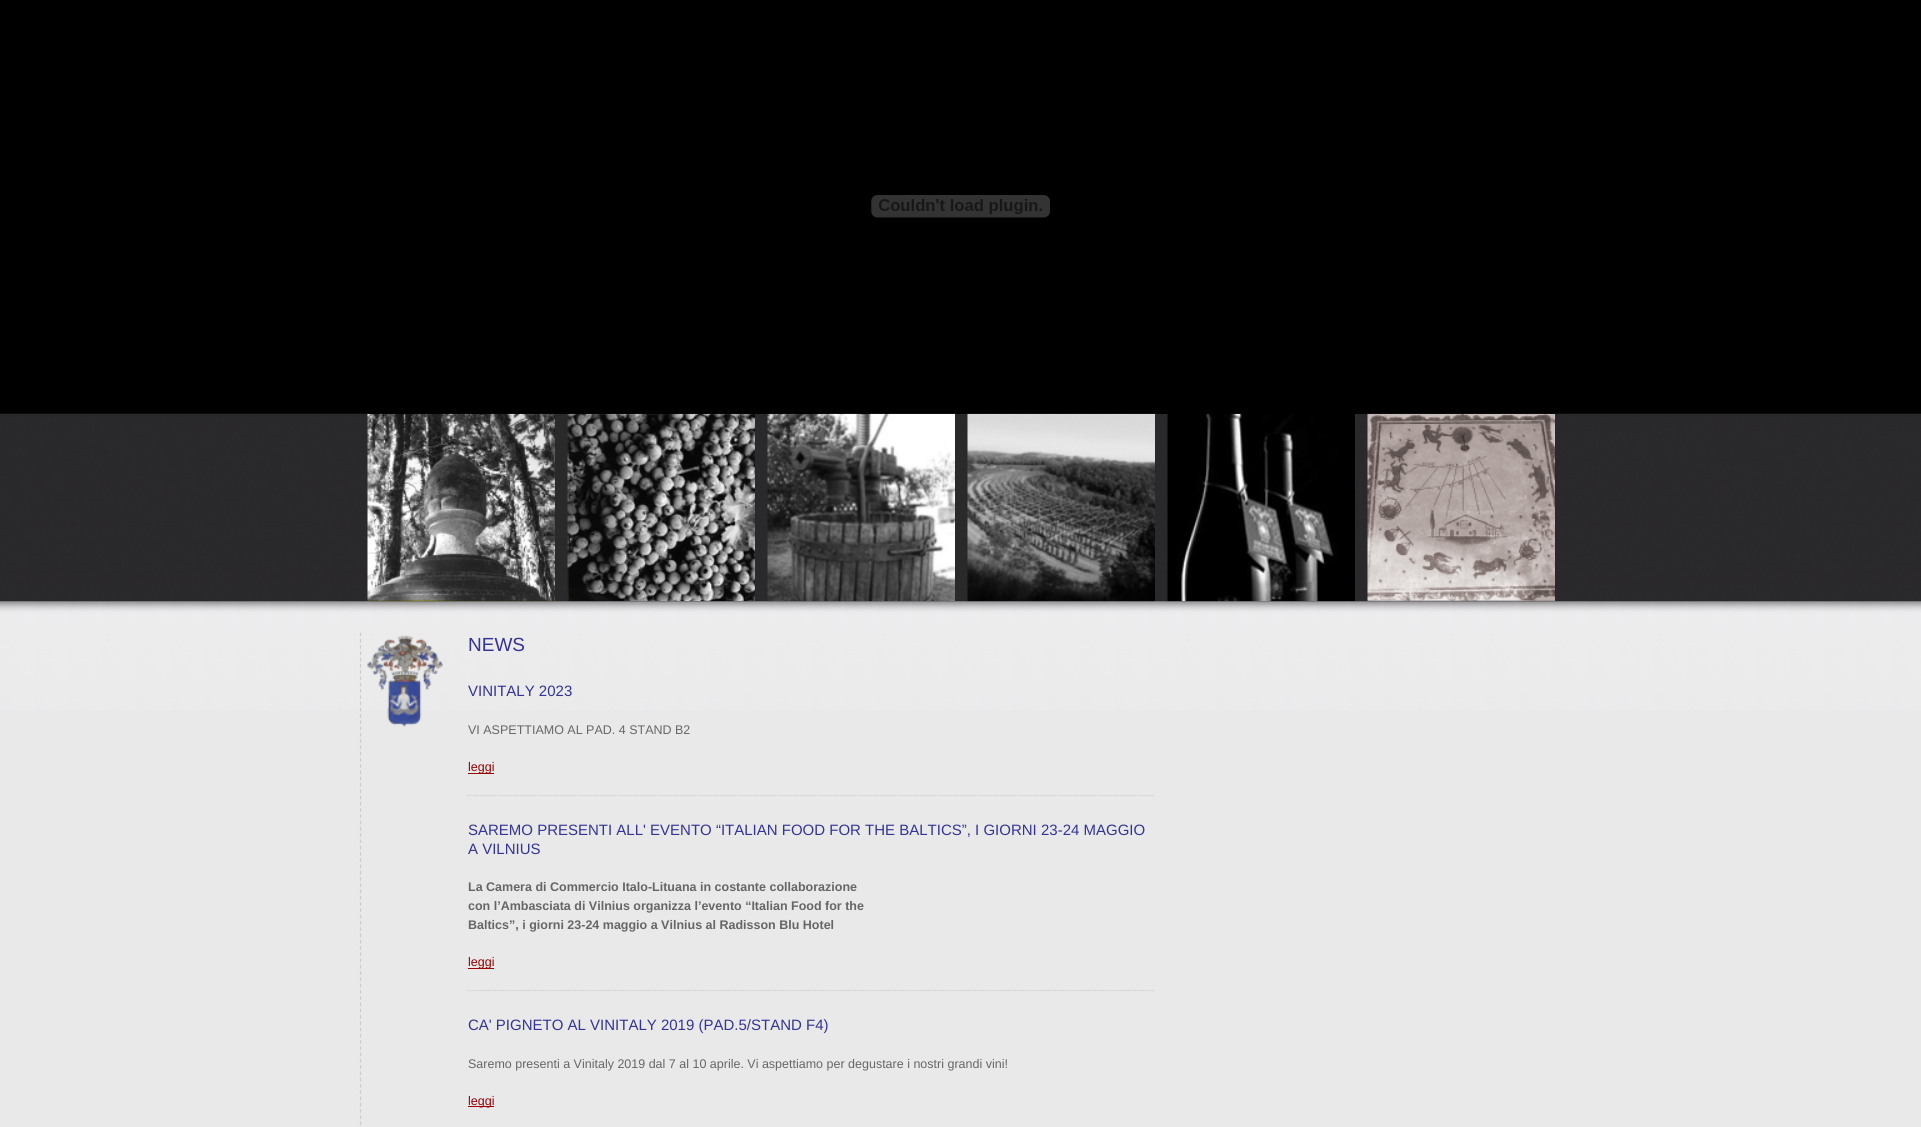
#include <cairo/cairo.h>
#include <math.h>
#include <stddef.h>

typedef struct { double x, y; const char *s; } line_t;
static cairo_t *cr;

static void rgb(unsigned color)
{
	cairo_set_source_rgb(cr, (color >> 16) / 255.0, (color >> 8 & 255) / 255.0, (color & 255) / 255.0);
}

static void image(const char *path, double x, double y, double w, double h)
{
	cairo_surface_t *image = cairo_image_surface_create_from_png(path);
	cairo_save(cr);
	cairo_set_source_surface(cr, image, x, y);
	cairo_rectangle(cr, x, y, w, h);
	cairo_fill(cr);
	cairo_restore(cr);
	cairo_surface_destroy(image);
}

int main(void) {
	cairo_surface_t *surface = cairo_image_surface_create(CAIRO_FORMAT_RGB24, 1921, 1127);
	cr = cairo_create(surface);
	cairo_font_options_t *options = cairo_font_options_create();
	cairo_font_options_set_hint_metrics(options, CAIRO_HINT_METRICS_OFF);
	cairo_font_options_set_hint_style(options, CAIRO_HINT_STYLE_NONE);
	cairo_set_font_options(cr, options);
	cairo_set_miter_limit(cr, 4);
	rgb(0xe9e9e9);
	cairo_paint(cr);
	image("img/1.png", 0, 0, 1921, 710);
	rgb(0x000000);
	cairo_rectangle(cr, 368, 413, 1187, 1);
	cairo_fill(cr);
	image("img/2.png", 871, 195, 179, 23);
	image("img/3.png", 367, 413, 188, 189);
	image("img/4.png", 567, 413, 188, 189);
	image("img/5.png", 767, 413, 188, 189);
	image("img/6.png", 967, 413, 188, 189);
	image("img/7.png", 1167, 413, 188, 189);
	image("img/8.png", 1367, 413, 188, 189);
	cairo_new_path(cr);
	cairo_move_to(cr, 360.5, 632.5);
	cairo_line_to(cr, 360.5, 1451);
	rgb(0xcccccc);
	cairo_set_line_width(cr, 1.2);
	cairo_set_dash(cr, (double[]){3.75, 2.52}, 2, 0);
	cairo_stroke(cr);
	image("img/9.png", 367, 635, 76, 92);
	cairo_new_path(cr);
	cairo_move_to(cr, 467.5, 795.5);
	cairo_line_to(cr, 1155, 795.5);
	cairo_set_dash(cr, (double[]){1.25, 1.25}, 2, 0);
	cairo_stroke(cr);
	rgb(0x990000);
	cairo_rectangle(cr, 468, 773, 26, 1);
	cairo_fill(cr);
	cairo_new_path(cr);
	cairo_move_to(cr, 467.5, 990.5);
	cairo_line_to(cr, 1155, 990.5);
	rgb(0xcccccc);
	cairo_stroke(cr);
	rgb(0x990000);
	cairo_rectangle(cr, 468, 968, 26, 1);
	cairo_fill(cr);
	cairo_rectangle(cr, 468, 1106, 26, 1);
	cairo_fill(cr);
	cairo_select_font_face(cr, "Liberation Sans", CAIRO_FONT_SLANT_NORMAL, CAIRO_FONT_WEIGHT_NORMAL);
	cairo_set_font_size(cr, 19);
	rgb(0x333399);
	cairo_move_to(cr, 468, 651);
	cairo_show_text(cr, "NEWS");
	cairo_set_font_size(cr, 15);
	cairo_move_to(cr, 468, 696);
	cairo_show_text(cr, "VINITALY 2023");
	cairo_set_font_size(cr, 12.5);
	rgb(0x666666);
	cairo_move_to(cr, 468, 734);
	cairo_show_text(cr, "VI ASPETTIAMO AL PAD. 4 STAND B2");
	rgb(0x990000);
	cairo_move_to(cr, 468, 771);
	cairo_show_text(cr, "leggi");
	cairo_set_font_size(cr, 15);
	rgb(0x333399);
	cairo_move_to(cr, 468, 835);
	cairo_show_text(cr, "SAREMO PRESENTI ALL' EVENTO “ITALIAN FOOD FOR THE BALTICS”, I GIORNI 23-24 MAGGIO");
	cairo_move_to(cr, 468, 854);
	cairo_show_text(cr, "A VILNIUS");
	cairo_select_font_face(cr, "Liberation Sans", CAIRO_FONT_SLANT_NORMAL, CAIRO_FONT_WEIGHT_BOLD);
	cairo_set_font_size(cr, 12.5);
	rgb(0x666666);
	{
		static const line_t items[] = {
			{468, 891, "La Camera di Commercio Italo-Lituana in costante collaborazione"},
			{468, 910, "con l’Ambasciata di Vilnius organizza l’evento “Italian Food for the"},
			{468, 929, "Baltics”, i giorni 23-24 maggio a Vilnius al Radisson Blu Hotel"},
		};
		for (size_t i = 0; i < sizeof items / sizeof *items; i++) {
			cairo_move_to(cr, items[i].x, items[i].y);
			cairo_show_text(cr, items[i].s);
		}
	}
	cairo_select_font_face(cr, "Liberation Sans", CAIRO_FONT_SLANT_NORMAL, CAIRO_FONT_WEIGHT_NORMAL);
	rgb(0x990000);
	cairo_move_to(cr, 468, 966);
	cairo_show_text(cr, "leggi");
	cairo_set_font_size(cr, 15);
	rgb(0x333399);
	cairo_move_to(cr, 468, 1030);
	cairo_show_text(cr, "CA' PIGNETO AL VINITALY 2019 (PAD.5/STAND F4)");
	cairo_set_font_size(cr, 12.5);
	rgb(0x666666);
	cairo_move_to(cr, 468, 1068);
	cairo_show_text(cr, "Saremo presenti a Vinitaly 2019 dal 7 al 10 aprile. Vi aspettiamo per degustare i nostri grandi vini!");
	rgb(0x990000);
	cairo_move_to(cr, 468, 1105);
	cairo_show_text(cr, "leggi");
	cairo_surface_write_to_png(surface, "page.png");
	cairo_font_options_destroy(options);
	cairo_destroy(cr);
	cairo_surface_destroy(surface);
	return 0;
}
